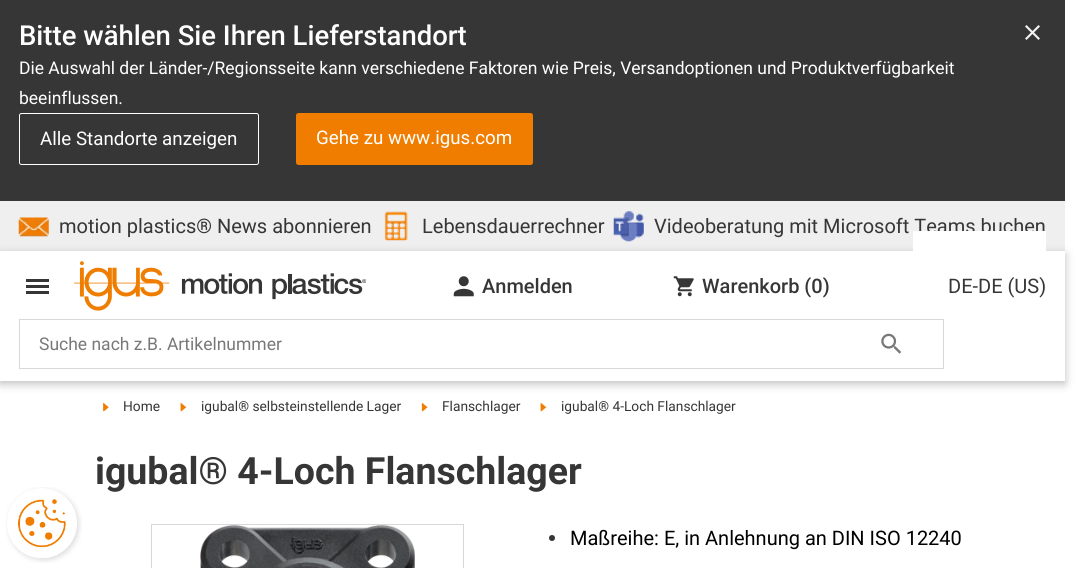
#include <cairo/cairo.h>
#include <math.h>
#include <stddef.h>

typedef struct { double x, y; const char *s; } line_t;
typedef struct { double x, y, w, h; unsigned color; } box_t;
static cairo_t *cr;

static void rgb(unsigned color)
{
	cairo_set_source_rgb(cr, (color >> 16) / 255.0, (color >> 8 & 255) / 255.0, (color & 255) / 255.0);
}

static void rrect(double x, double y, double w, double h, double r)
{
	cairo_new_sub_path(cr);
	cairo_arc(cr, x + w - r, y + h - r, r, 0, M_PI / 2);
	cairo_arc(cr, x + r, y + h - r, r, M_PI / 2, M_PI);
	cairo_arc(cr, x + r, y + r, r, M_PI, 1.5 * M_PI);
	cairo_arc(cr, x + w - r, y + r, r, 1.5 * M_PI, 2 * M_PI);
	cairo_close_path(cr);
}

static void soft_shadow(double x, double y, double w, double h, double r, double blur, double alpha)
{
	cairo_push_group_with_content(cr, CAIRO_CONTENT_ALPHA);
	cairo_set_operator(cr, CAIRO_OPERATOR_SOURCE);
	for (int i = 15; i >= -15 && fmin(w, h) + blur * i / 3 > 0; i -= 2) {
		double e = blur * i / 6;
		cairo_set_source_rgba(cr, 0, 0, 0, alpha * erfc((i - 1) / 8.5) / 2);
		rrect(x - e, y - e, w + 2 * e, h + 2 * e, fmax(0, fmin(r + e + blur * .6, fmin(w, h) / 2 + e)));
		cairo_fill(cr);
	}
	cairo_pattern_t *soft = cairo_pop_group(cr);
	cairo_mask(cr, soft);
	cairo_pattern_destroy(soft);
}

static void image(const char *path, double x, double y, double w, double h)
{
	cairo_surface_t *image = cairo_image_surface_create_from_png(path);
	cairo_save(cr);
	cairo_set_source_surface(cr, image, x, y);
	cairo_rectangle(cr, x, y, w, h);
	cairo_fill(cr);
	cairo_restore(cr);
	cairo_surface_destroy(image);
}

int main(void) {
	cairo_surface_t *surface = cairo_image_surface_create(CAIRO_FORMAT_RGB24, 1083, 568);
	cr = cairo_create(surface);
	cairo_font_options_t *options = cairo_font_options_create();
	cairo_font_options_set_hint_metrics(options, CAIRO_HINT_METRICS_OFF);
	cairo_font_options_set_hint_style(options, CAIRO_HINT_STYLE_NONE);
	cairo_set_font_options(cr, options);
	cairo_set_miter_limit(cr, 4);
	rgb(0xffffff);
	cairo_paint(cr);
	rgb(0x363636);
	cairo_rectangle(cr, 0, 0, 1065, 201);
	cairo_fill(cr);
	image("img/1.png", 1025, 25, 15, 15);
	rrect(19.5, 113.5, 239, 51, 2);
	rgb(0xffffff);
	cairo_set_line_width(cr, 1);
	cairo_stroke(cr);
	rgb(0xf07d00);
	rrect(296, 113, 237, 52, 2.5);
	cairo_fill(cr);
	rgb(0xefefef);
	cairo_rectangle(cr, 0, 201, 1065, 50);
	cairo_fill(cr);
	image("img/2.png", 18, 217, 31, 20);
	cairo_save(cr);
	cairo_set_fill_rule(cr, CAIRO_FILL_RULE_EVEN_ODD);
	cairo_new_path(cr);
	cairo_move_to(cr, 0, 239);
	cairo_line_to(cr, 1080, 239);
	cairo_line_to(cr, 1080, 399);
	cairo_line_to(cr, 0, 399);
	cairo_close_path(cr);
	cairo_move_to(cr, 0, 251);
	cairo_line_to(cr, 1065, 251);
	cairo_line_to(cr, 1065, 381);
	cairo_line_to(cr, 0, 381);
	cairo_close_path(cr);
	cairo_clip(cr);
	rgb(0x000000);
	soft_shadow(0, 254, 1065, 130, 0, 4.5, 0.25);
	cairo_restore(cr);
	image("img/3.png", 384, 211, 24, 30);
	image("img/4.png", 613, 211, 31, 31);
	{
		static const box_t items[] = {
			{26, 285, 23, 3, 0x363636},
			{26, 279, 23, 3, 0x363636},
			{26, 291, 23, 3, 0x363636},
		};
		for (size_t i = 0; i < sizeof items / sizeof *items; i++) {
			rgb(items[i].color);
			cairo_rectangle(cr, items[i].x, items[i].y, items[i].w, items[i].h);
			cairo_fill(cr);
		}
	}
	image("img/5.png", 74, 261, 96, 50);
	image("img/6.png", 181, 273, 185, 27);
	image("img/7.png", 453, 276, 21, 21);
	image("img/8.png", 673, 276, 21, 21);
	cairo_rectangle(cr, 19.5, 319.5, 924, 49);
	rgb(0xd8d8d8);
	cairo_stroke(cr);
	image("img/9.png", 881, 333, 21, 21);
	image("img/10.png", 103, 402, 6, 10);
	image("img/11.png", 180, 402, 7, 10);
	image("img/12.png", 421, 403, 7, 9);
	image("img/11.png", 540, 402, 7, 10);
	cairo_rectangle(cr, 151.5, 524.5, 312, 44);
	cairo_stroke(cr);
	image("img/13.png", 200, 525, 215, 43);
	rgb(0x363636);
	cairo_arc(cr, 552, 538, 3, 0, 2 * M_PI);
	cairo_fill(cr);
	image("img/14.png", 6, 487, 76, 76);
	cairo_select_font_face(cr, "Roboto Medium", CAIRO_FONT_SLANT_NORMAL, CAIRO_FONT_WEIGHT_NORMAL);
	cairo_set_font_size(cr, 27.5);
	rgb(0xffffff);
	cairo_move_to(cr, 19, 45);
	cairo_show_text(cr, "Bitte wählen Sie Ihren Lieferstandort");
	cairo_select_font_face(cr, "Roboto", CAIRO_FONT_SLANT_NORMAL, CAIRO_FONT_WEIGHT_NORMAL);
	cairo_set_font_size(cr, 17.5);
	cairo_move_to(cr, 19, 74);
	cairo_show_text(cr, "Die Auswahl der Länder-/Regionsseite kann verschiedene Faktoren wie Preis, Versandoptionen und Produktverfügbarkeit");
	cairo_move_to(cr, 19, 104);
	cairo_show_text(cr, "beeinflussen.");
	cairo_set_font_size(cr, 18.75);
	cairo_move_to(cr, 40, 145);
	cairo_show_text(cr, "Alle Standorte anzeigen");
	cairo_move_to(cr, 316, 144);
	cairo_show_text(cr, "Gehe zu www.igus.com");
	cairo_set_font_size(cr, 20);
	rgb(0x363636);
	{
		static const line_t items[] = {
			{59, 233, "motion plastics® News abonnieren"},
			{422, 233, "Lebensdauerrechner"},
			{654, 233, "Videoberatung mit Microsoft Teams buchen"},
		};
		for (size_t i = 0; i < sizeof items / sizeof *items; i++) {
			cairo_move_to(cr, items[i].x, items[i].y);
			cairo_show_text(cr, items[i].s);
		}
	}
	cairo_select_font_face(cr, "Roboto Medium", CAIRO_FONT_SLANT_NORMAL, CAIRO_FONT_WEIGHT_NORMAL);
	cairo_move_to(cr, 482, 293);
	cairo_show_text(cr, "Anmelden");
	cairo_move_to(cr, 702, 293);
	cairo_show_text(cr, "Warenkorb (0)");
	rgb(0xffffff);
	cairo_rectangle(cr, 913, 231, 133, 21);
	cairo_fill(cr);
	cairo_select_font_face(cr, "Roboto", CAIRO_FONT_SLANT_NORMAL, CAIRO_FONT_WEIGHT_NORMAL);
	rgb(0x363636);
	cairo_move_to(cr, 948, 293);
	cairo_show_text(cr, "DE-DE (US)");
	cairo_set_font_size(cr, 17.5);
	rgb(0x787878);
	cairo_move_to(cr, 39, 350);
	cairo_show_text(cr, "Suche nach z.B. Artikelnummer");
	cairo_set_font_size(cr, 13.75);
	rgb(0x363636);
	{
		static const line_t items[] = {
			{123, 411, "Home"},
			{201, 411, "igubal® selbsteinstellende Lager"},
			{442, 411, "Flanschlager"},
			{561, 411, "igubal® 4-Loch Flanschlager"},
		};
		for (size_t i = 0; i < sizeof items / sizeof *items; i++) {
			cairo_move_to(cr, items[i].x, items[i].y);
			cairo_show_text(cr, items[i].s);
		}
	}
	cairo_select_font_face(cr, "Roboto", CAIRO_FONT_SLANT_NORMAL, CAIRO_FONT_WEIGHT_BOLD);
	cairo_set_font_size(cr, 37.5);
	cairo_move_to(cr, 95, 484);
	cairo_show_text(cr, "igubal® 4-Loch Flanschlager");
	cairo_select_font_face(cr, "Roboto", CAIRO_FONT_SLANT_NORMAL, CAIRO_FONT_WEIGHT_NORMAL);
	cairo_set_font_size(cr, 20);
	rgb(0x000000);
	cairo_move_to(cr, 570, 545);
	cairo_show_text(cr, "Maßreihe: E, in Anlehnung an DIN ISO 12240");
	cairo_surface_write_to_png(surface, "page.png");
	cairo_font_options_destroy(options);
	cairo_destroy(cr);
	cairo_surface_destroy(surface);
	return 0;
}
